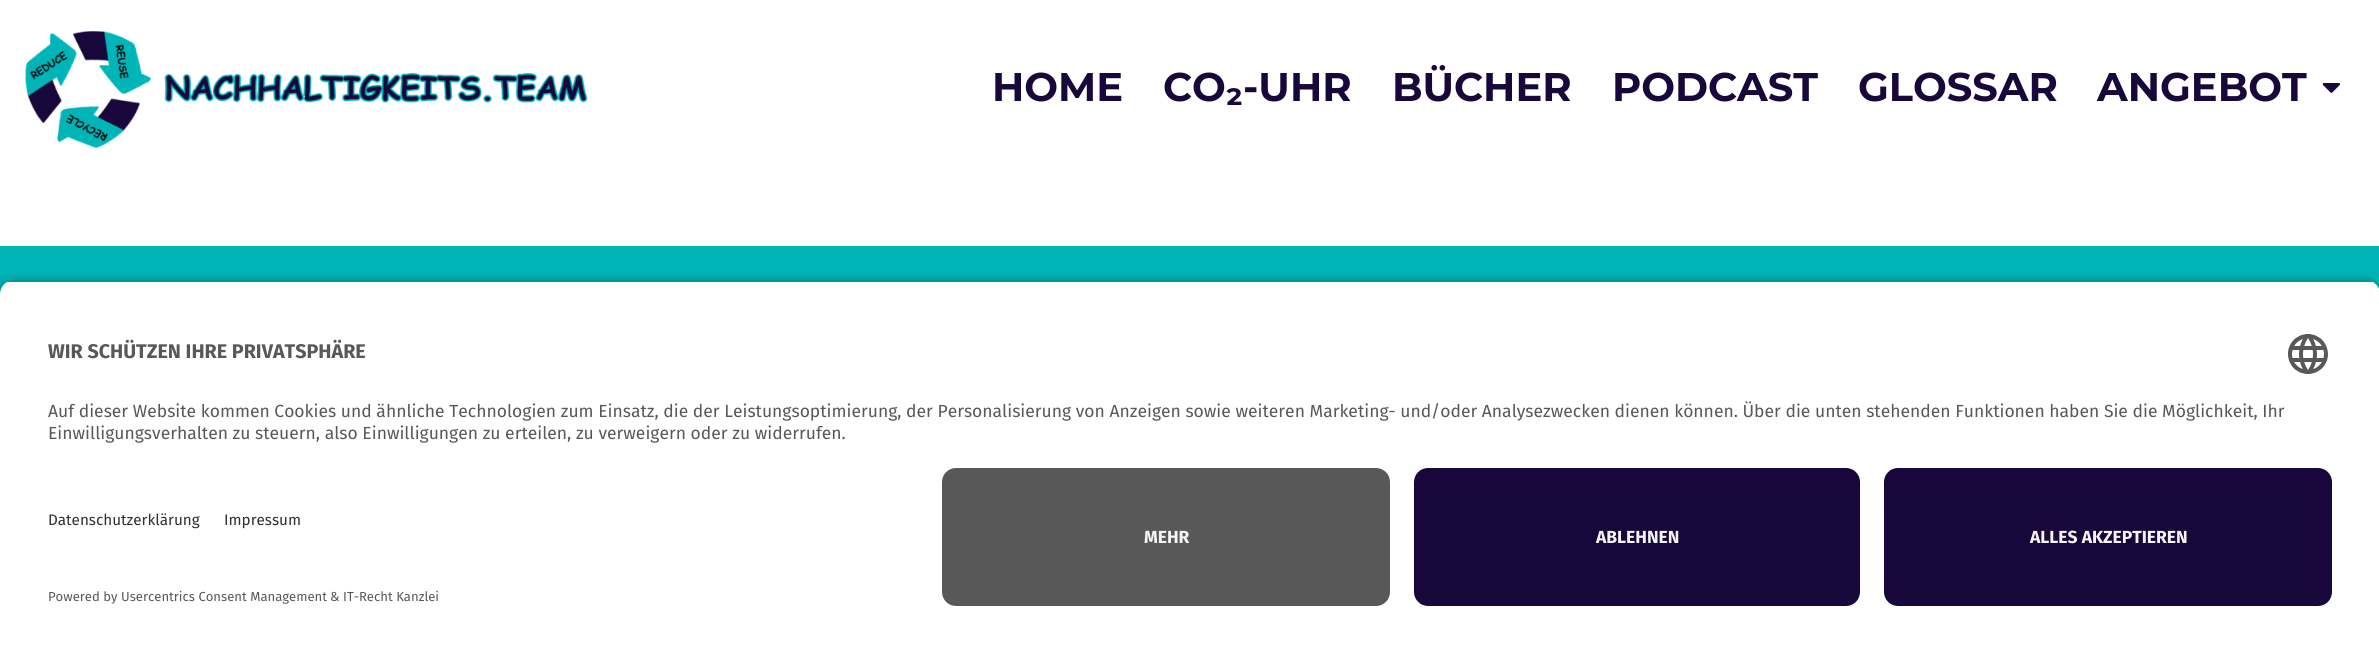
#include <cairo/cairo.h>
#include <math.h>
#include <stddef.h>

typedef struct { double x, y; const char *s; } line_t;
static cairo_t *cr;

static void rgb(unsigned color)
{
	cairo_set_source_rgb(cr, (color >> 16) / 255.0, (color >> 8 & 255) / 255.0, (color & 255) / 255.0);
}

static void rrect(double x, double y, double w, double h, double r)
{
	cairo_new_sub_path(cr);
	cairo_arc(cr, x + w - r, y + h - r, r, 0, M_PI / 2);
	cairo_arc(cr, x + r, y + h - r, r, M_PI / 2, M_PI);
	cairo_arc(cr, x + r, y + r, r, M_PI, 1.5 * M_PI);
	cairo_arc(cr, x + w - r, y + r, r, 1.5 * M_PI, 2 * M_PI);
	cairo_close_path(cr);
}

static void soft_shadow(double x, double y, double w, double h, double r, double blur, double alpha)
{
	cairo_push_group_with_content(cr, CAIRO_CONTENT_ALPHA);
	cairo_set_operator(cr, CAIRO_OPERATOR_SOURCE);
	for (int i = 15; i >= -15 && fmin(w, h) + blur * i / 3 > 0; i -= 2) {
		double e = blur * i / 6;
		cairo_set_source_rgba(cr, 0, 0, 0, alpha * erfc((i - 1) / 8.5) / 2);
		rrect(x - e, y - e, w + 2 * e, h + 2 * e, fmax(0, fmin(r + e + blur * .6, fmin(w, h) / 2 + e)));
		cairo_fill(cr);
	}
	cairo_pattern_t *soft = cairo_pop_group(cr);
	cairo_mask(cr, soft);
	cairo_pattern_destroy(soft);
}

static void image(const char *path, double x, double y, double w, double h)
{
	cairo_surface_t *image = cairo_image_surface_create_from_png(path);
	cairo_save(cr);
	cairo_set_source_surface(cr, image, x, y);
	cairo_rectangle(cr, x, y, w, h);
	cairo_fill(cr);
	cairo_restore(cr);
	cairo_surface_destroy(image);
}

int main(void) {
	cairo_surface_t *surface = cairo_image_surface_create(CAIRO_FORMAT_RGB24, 2379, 654);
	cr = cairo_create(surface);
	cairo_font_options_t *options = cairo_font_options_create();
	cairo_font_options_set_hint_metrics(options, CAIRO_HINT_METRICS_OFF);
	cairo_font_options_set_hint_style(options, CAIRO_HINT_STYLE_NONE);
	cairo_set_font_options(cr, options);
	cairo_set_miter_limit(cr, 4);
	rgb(0xffffff);
	cairo_paint(cr);
	image("img/1.png", 25, 30, 563, 119);
	image("img/2.png", 2322, 83, 19, 10);
	rgb(0x00b5b8);
	cairo_rectangle(cr, 0, 246, 2379, 48);
	cairo_fill(cr);
	rgb(0x000000);
	soft_shadow(0, 286, 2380, 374, 14, 7, 0.8);
	cairo_save(cr);
	cairo_new_path(cr);
	cairo_move_to(cr, 14, 280);
	cairo_line_to(cr, 2366, 280);
	cairo_curve_to(cr, 2373.5, 280, 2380, 286.5, 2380, 294);
	cairo_line_to(cr, 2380, 452);
	cairo_line_to(cr, 0, 452);
	cairo_line_to(cr, 0, 294);
	cairo_curve_to(cr, 0, 286.5, 6.5, 280, 14, 280);
	cairo_close_path(cr);
	cairo_clip(cr);
	rgb(0xffffff);
	cairo_rectangle(cr, 0, 282, 2379, 170);
	cairo_fill(cr);
	cairo_restore(cr);
	image("img/3.png", 2288, 334, 40, 40);
	rgb(0xffffff);
	cairo_rectangle(cr, 0, 452, 2379, 202);
	cairo_fill(cr);
	rgb(0x585858);
	rrect(942, 468, 448, 138, 14);
	cairo_fill(cr);
	rgb(0x18073a);
	rrect(1414, 468, 446, 138, 14);
	cairo_fill(cr);
	rrect(1884, 468, 448, 138, 14);
	cairo_fill(cr);
	cairo_select_font_face(cr, "Montserrat", CAIRO_FONT_SLANT_NORMAL, CAIRO_FONT_WEIGHT_BOLD);
	cairo_set_font_size(cr, 40);
	{
		static const line_t items[] = {
			{992, 101, "HOME"},
			{1163, 101, "CO₂-UHR"},
			{1392, 101, "BÜCHER"},
			{1612, 101, "PODCAST"},
			{1858, 101, "GLOSSAR"},
			{2097, 101, "ANGEBOT"},
		};
		for (size_t i = 0; i < sizeof items / sizeof *items; i++) {
			cairo_move_to(cr, items[i].x, items[i].y);
			cairo_show_text(cr, items[i].s);
		}
	}
	cairo_select_font_face(cr, "Fira Sans", CAIRO_FONT_SLANT_NORMAL, CAIRO_FONT_WEIGHT_BOLD);
	cairo_set_font_size(cr, 19.75);
	rgb(0x595857);
	cairo_move_to(cr, 48, 358);
	cairo_show_text(cr, "WIR SCHÜTZEN IHRE PRIVATSPHÄRE");
	cairo_select_font_face(cr, "Fira Sans", CAIRO_FONT_SLANT_NORMAL, CAIRO_FONT_WEIGHT_NORMAL);
	cairo_set_font_size(cr, 17.5);
	cairo_move_to(cr, 48, 417);
	cairo_show_text(cr, "Auf dieser Website kommen Cookies und ähnliche Technologien zum Einsatz, die der Leistungsoptimierung, der Personalisierung von Anzeigen sowie weiteren Marketing- und/oder Analysezwecken dienen können. Über die unten stehenden Funktionen haben Sie die Möglichkeit, Ihr");
	cairo_move_to(cr, 48, 439);
	cairo_show_text(cr, "Einwilligungsverhalten zu steuern, also Einwilligungen zu erteilen, zu verweigern oder zu widerrufen.");
	cairo_set_font_size(cr, 15.25);
	rgb(0x303030);
	cairo_move_to(cr, 48, 525);
	cairo_show_text(cr, "Datenschutzerklärung");
	cairo_move_to(cr, 224, 525);
	cairo_show_text(cr, "Impressum");
	cairo_set_font_size(cr, 13.1);
	rgb(0x595857);
	cairo_move_to(cr, 48, 601);
	cairo_show_text(cr, "Powered by Usercentrics Consent Management");
	cairo_move_to(cr, 330, 601);
	cairo_show_text(cr, "& IT-Recht Kanzlei");
	cairo_select_font_face(cr, "Fira Sans", CAIRO_FONT_SLANT_NORMAL, CAIRO_FONT_WEIGHT_BOLD);
	cairo_set_font_size(cr, 17.5);
	rgb(0xf5f5f5);
	{
		static const line_t items[] = {
			{1144, 543, "MEHR"},
			{1596, 543, "ABLEHNEN"},
			{2030, 543, "ALLES AKZEPTIEREN"},
		};
		for (size_t i = 0; i < sizeof items / sizeof *items; i++) {
			cairo_move_to(cr, items[i].x, items[i].y);
			cairo_show_text(cr, items[i].s);
		}
	}
	cairo_surface_write_to_png(surface, "page.png");
	cairo_font_options_destroy(options);
	cairo_destroy(cr);
	cairo_surface_destroy(surface);
	return 0;
}
